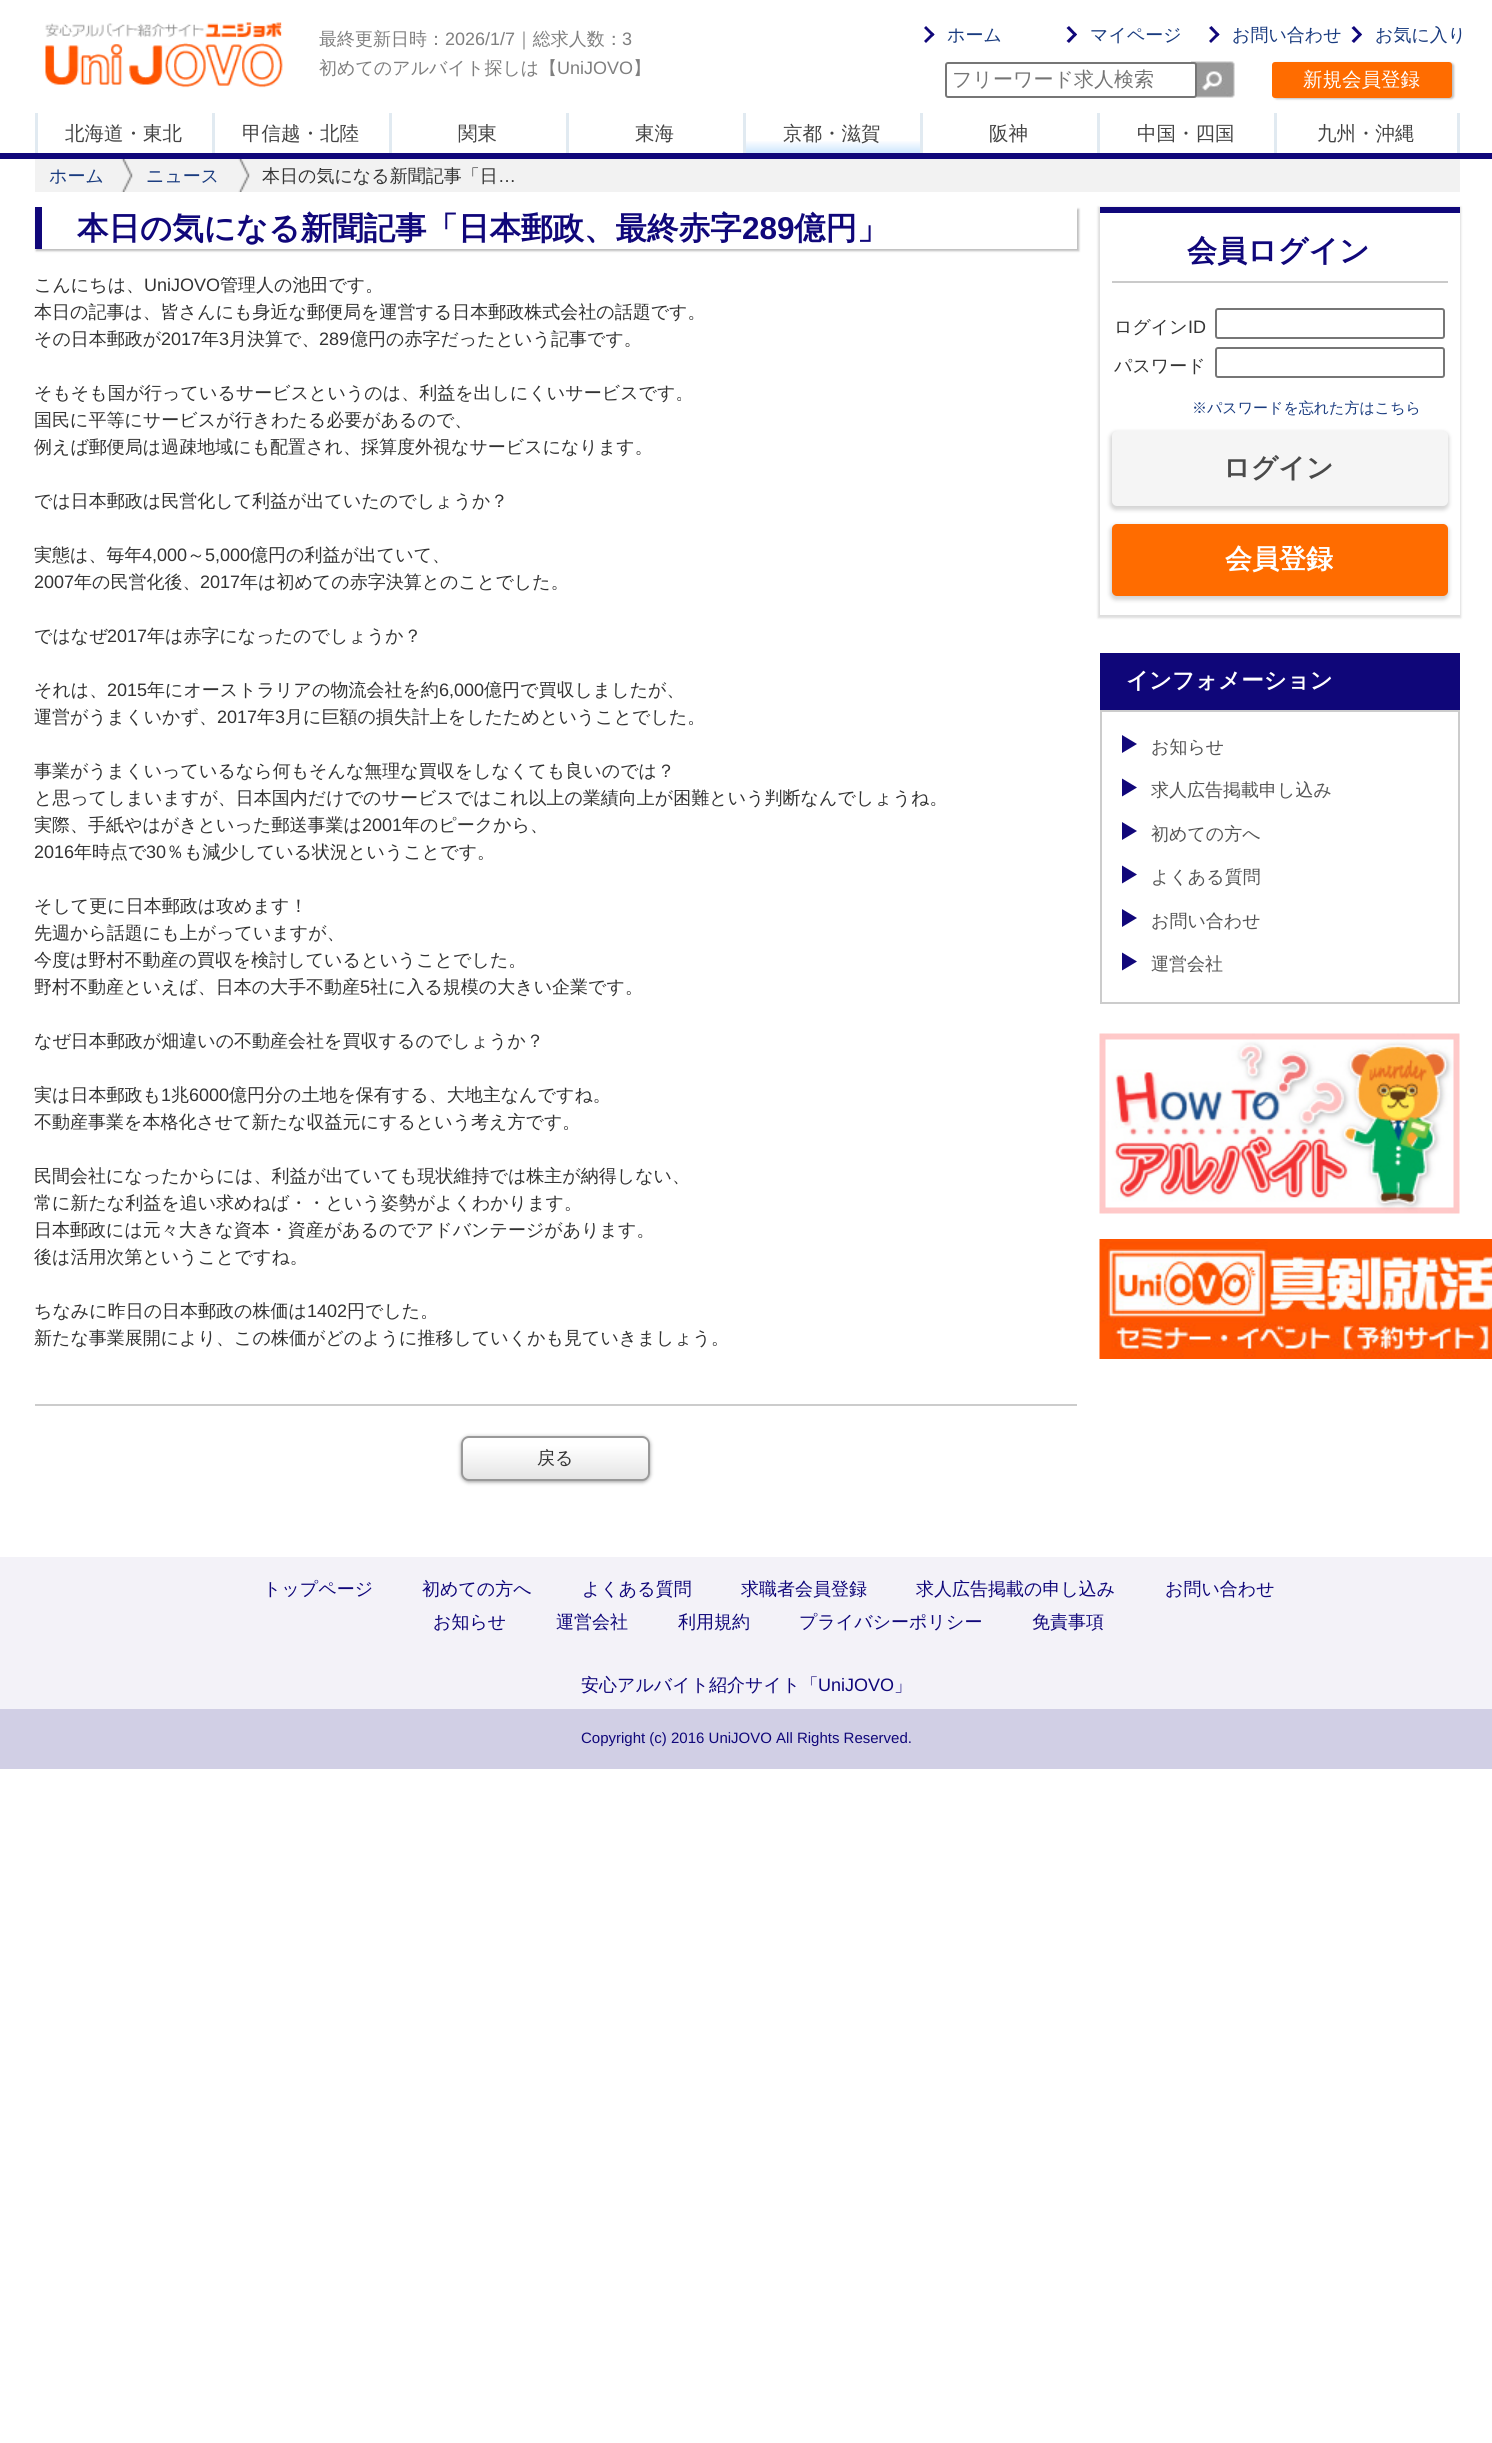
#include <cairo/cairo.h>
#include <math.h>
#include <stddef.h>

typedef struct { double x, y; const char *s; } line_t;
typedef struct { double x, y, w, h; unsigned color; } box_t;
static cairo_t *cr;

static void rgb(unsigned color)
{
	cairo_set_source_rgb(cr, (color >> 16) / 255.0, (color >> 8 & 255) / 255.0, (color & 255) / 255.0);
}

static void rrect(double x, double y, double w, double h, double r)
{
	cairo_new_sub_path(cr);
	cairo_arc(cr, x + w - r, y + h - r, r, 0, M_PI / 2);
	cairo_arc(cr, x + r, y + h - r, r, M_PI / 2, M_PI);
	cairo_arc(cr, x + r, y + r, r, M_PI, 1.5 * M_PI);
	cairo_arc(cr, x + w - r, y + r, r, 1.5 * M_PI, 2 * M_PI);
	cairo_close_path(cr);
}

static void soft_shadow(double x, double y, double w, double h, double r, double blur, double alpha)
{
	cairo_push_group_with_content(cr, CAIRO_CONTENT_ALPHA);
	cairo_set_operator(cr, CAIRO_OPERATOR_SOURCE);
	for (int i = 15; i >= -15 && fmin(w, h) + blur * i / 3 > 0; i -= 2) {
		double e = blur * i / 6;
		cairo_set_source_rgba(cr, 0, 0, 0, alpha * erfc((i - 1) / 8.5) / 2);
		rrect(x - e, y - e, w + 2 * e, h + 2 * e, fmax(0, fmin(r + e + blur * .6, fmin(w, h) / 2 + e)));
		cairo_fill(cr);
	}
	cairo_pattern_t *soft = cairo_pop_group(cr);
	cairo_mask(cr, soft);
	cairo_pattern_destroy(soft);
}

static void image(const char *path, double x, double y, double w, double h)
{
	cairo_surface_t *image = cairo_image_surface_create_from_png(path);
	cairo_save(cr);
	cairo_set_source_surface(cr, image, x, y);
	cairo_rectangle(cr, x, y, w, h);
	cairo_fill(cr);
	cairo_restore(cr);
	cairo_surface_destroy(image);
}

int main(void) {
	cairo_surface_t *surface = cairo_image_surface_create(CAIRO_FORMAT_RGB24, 1492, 2443);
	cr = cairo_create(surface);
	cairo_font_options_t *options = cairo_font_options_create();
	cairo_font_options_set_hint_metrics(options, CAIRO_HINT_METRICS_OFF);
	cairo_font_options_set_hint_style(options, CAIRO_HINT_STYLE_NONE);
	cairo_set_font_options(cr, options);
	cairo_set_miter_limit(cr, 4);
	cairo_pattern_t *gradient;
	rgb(0xffffff);
	cairo_paint(cr);
	rgb(0x10077a);
	cairo_rectangle(cr, 0, 153, 1492, 6);
	cairo_fill(cr);
	image("img/1.png", 45, 22, 238, 66);
	cairo_new_path(cr);
	cairo_move_to(cr, 926, 26);
	cairo_line_to(cr, 934.5, 34.5);
	cairo_line_to(cr, 932.5, 36.5);
	cairo_line_to(cr, 924, 28);
	cairo_close_path(cr);
	cairo_fill(cr);
	cairo_new_path(cr);
	cairo_move_to(cr, 932.5, 32.5);
	cairo_line_to(cr, 934.5, 34.5);
	cairo_line_to(cr, 926, 43);
	cairo_line_to(cr, 924, 41);
	cairo_close_path(cr);
	cairo_fill(cr);
	cairo_new_path(cr);
	cairo_move_to(cr, 1069, 26);
	cairo_line_to(cr, 1077, 34.5);
	cairo_line_to(cr, 1075, 36.5);
	cairo_line_to(cr, 1066.5, 28);
	cairo_close_path(cr);
	cairo_fill(cr);
	cairo_new_path(cr);
	cairo_move_to(cr, 1075, 32.5);
	cairo_line_to(cr, 1077, 34.5);
	cairo_line_to(cr, 1069, 43);
	cairo_line_to(cr, 1066.5, 41);
	cairo_close_path(cr);
	cairo_fill(cr);
	cairo_new_path(cr);
	cairo_move_to(cr, 1211.5, 26);
	cairo_line_to(cr, 1219.5, 34.5);
	cairo_line_to(cr, 1217.5, 36.5);
	cairo_line_to(cr, 1209, 28);
	cairo_close_path(cr);
	cairo_fill(cr);
	cairo_new_path(cr);
	cairo_move_to(cr, 1217.5, 32.5);
	cairo_line_to(cr, 1219.5, 34.5);
	cairo_line_to(cr, 1211, 43);
	cairo_line_to(cr, 1209, 41);
	cairo_close_path(cr);
	cairo_fill(cr);
	cairo_new_path(cr);
	cairo_move_to(cr, 1354, 26);
	cairo_line_to(cr, 1362, 34.5);
	cairo_line_to(cr, 1360, 36.5);
	cairo_line_to(cr, 1351.5, 28);
	cairo_close_path(cr);
	cairo_fill(cr);
	cairo_new_path(cr);
	cairo_move_to(cr, 1360, 32.5);
	cairo_line_to(cr, 1362, 34.5);
	cairo_line_to(cr, 1354, 43);
	cairo_line_to(cr, 1351.5, 41);
	cairo_close_path(cr);
	cairo_fill(cr);
	image("img/2.png", 1191, 61, 44, 37);
	rgb(0xffffff);
	rrect(946, 63, 250, 34, 2);
	cairo_fill_preserve(cr);
	rgb(0x767676);
	cairo_stroke(cr);
	rgb(0x777777);
	soft_shadow(1274, 63, 180, 36, 3, 1, 0.48);
	rgb(0xff6c00);
	rrect(1272, 62, 180, 36, 3);
	cairo_fill(cr);
	{
		static const box_t items[] = {
			{35, 113, 3, 40, 0xe1eaf1},
			{212, 113, 3, 40, 0xe1eaf1},
			{389, 113, 3, 40, 0xe1eaf1},
			{566, 113, 3, 40, 0xe1eaf1},
			{743, 113, 3, 40, 0xe1eaf1},
		};
		for (size_t i = 0; i < sizeof items / sizeof *items; i++) {
			rgb(items[i].color);
			cairo_rectangle(cr, items[i].x, items[i].y, items[i].w, items[i].h);
			cairo_fill(cr);
		}
	}
	gradient = cairo_pattern_create_linear(833, 113, 833, 153);
	cairo_pattern_add_color_stop_rgba(gradient, 0.68, 1, 1, 1, 1);
	cairo_pattern_add_color_stop_rgba(gradient, 0.97, 0.824, 0.91, 0.996, 1);
	cairo_set_source(cr, gradient);
	cairo_pattern_destroy(gradient);
	cairo_rectangle(cr, 746, 141, 174, 12);
	cairo_fill(cr);
	{
		static const box_t items[] = {
			{920, 113, 3, 40, 0xe1eaf1},
			{1097, 113, 3, 40, 0xe1eaf1},
			{1457, 113, 3, 40, 0xe1eaf1},
			{1274, 113, 3, 40, 0xe1eaf1},
			{35, 159, 1425, 33, 0xf2f2f2},
		};
		for (size_t i = 0; i < sizeof items / sizeof *items; i++) {
			rgb(items[i].color);
			cairo_rectangle(cr, items[i].x, items[i].y, items[i].w, items[i].h);
			cairo_fill(cr);
		}
	}
	image("img/3.png", 121, 159, 12, 33);
	image("img/3.png", 238, 159, 12, 33);
	cairo_save(cr);
	cairo_set_fill_rule(cr, CAIRO_FILL_RULE_EVEN_ODD);
	cairo_new_path(cr);
	cairo_move_to(cr, 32, 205);
	cairo_line_to(cr, 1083, 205);
	cairo_line_to(cr, 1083, 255);
	cairo_line_to(cr, 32, 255);
	cairo_close_path(cr);
	cairo_move_to(cr, 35, 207);
	cairo_line_to(cr, 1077, 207);
	cairo_line_to(cr, 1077, 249);
	cairo_line_to(cr, 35, 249);
	cairo_close_path(cr);
	cairo_clip(cr);
	rgb(0x777777);
	soft_shadow(36, 209, 1043, 42, 0, 1, 0.48);
	cairo_restore(cr);
	rgb(0x10077a);
	cairo_rectangle(cr, 35, 207, 7, 42);
	cairo_fill(cr);
	rgb(0xcccccc);
	cairo_rectangle(cr, 35, 1404, 1042, 2);
	cairo_fill(cr);
	rgb(0x999999);
	soft_shadow(461, 1437, 189, 45, 8, 2, 1);
	cairo_save(cr);
	rrect(461, 1436, 189, 45, 8);
	cairo_clip(cr);
	gradient = cairo_pattern_create_linear(555, 1437, 555, 1479);
	cairo_pattern_add_color_stop_rgba(gradient, 0.2, 1, 1, 1, 1);
	cairo_pattern_add_color_stop_rgba(gradient, 1, 0.898, 0.898, 0.898, 1);
	cairo_set_source(cr, gradient);
	cairo_pattern_destroy(gradient);
	cairo_rectangle(cr, 461, 1437, 189, 42);
	cairo_fill(cr);
	cairo_restore(cr);
	rrect(462, 1437, 187, 43, 7);
	rgb(0x999999);
	cairo_stroke(cr);
	cairo_save(cr);
	cairo_set_fill_rule(cr, CAIRO_FILL_RULE_EVEN_ODD);
	cairo_new_path(cr);
	cairo_move_to(cr, 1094, 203);
	cairo_line_to(cr, 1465, 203);
	cairo_line_to(cr, 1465, 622);
	cairo_line_to(cr, 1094, 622);
	cairo_close_path(cr);
	cairo_move_to(cr, 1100, 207);
	cairo_line_to(cr, 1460, 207);
	cairo_line_to(cr, 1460, 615);
	cairo_line_to(cr, 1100, 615);
	cairo_close_path(cr);
	cairo_clip(cr);
	rgb(0x777777);
	soft_shadow(1098, 207, 363, 411, 0, 1, 0.25);
	cairo_restore(cr);
	rgb(0x10077a);
	cairo_rectangle(cr, 1100, 207, 360, 6);
	cairo_fill(cr);
	rgb(0xcacaca);
	cairo_rectangle(cr, 1112, 281, 336, 2);
	cairo_fill(cr);
	rrect(1216, 309, 228, 29, 2);
	rgb(0x767676);
	cairo_stroke(cr);
	rrect(1216, 348, 228, 29, 2);
	cairo_stroke(cr);
	rgb(0x777777);
	soft_shadow(1110, 432, 339, 78, 6, 2, 0.31);
	rgb(0xf5f5f5);
	rrect(1112, 431, 336, 75, 5);
	cairo_fill(cr);
	rgb(0x777777);
	soft_shadow(1110, 525, 339, 75, 6, 2, 0.31);
	rgb(0xff6c00);
	rrect(1112, 524, 336, 72, 5);
	cairo_fill(cr);
	rgb(0x0f0679);
	cairo_rectangle(cr, 1100, 653, 360, 57);
	cairo_fill(cr);
	cairo_rectangle(cr, 1101, 711, 358, 292);
	rgb(0xcccccc);
	cairo_stroke(cr);
	rgb(0x11077a);
	cairo_new_path(cr);
	cairo_move_to(cr, 1122, 753);
	cairo_line_to(cr, 1122, 735);
	cairo_line_to(cr, 1137, 744);
	cairo_close_path(cr);
	cairo_fill(cr);
	cairo_new_path(cr);
	cairo_move_to(cr, 1122, 796.5);
	cairo_line_to(cr, 1122, 778.5);
	cairo_line_to(cr, 1137, 787.5);
	cairo_close_path(cr);
	cairo_fill(cr);
	cairo_new_path(cr);
	cairo_move_to(cr, 1122, 840);
	cairo_line_to(cr, 1122, 822);
	cairo_line_to(cr, 1137, 831);
	cairo_close_path(cr);
	cairo_fill(cr);
	cairo_new_path(cr);
	cairo_move_to(cr, 1122, 883.5);
	cairo_line_to(cr, 1122, 865.5);
	cairo_line_to(cr, 1137, 874.5);
	cairo_close_path(cr);
	cairo_fill(cr);
	cairo_new_path(cr);
	cairo_move_to(cr, 1122, 927);
	cairo_line_to(cr, 1122, 909);
	cairo_line_to(cr, 1137, 918);
	cairo_close_path(cr);
	cairo_fill(cr);
	cairo_new_path(cr);
	cairo_move_to(cr, 1122, 970.5);
	cairo_line_to(cr, 1122, 952.5);
	cairo_line_to(cr, 1137, 961.5);
	cairo_close_path(cr);
	cairo_fill(cr);
	image("img/4.png", 1099, 1033, 361, 181);
	image("img/5.png", 1099, 1239, 393, 120);
	rgb(0xf3f2f8);
	cairo_rectangle(cr, 0, 1557, 1492, 152);
	cairo_fill(cr);
	rgb(0xd1cfe5);
	cairo_rectangle(cr, 0, 1709, 1492, 60);
	cairo_fill(cr);
	cairo_select_font_face(cr, "WenQuanYi Zen Hei Medium", CAIRO_FONT_SLANT_NORMAL, CAIRO_FONT_WEIGHT_NORMAL);
	cairo_set_font_size(cr, 18);
	rgb(0x7f7f7f);
	cairo_move_to(cr, 319, 45);
	cairo_show_text(cr, "最終更新日時：");
	cairo_select_font_face(cr, "Liberation Sans", CAIRO_FONT_SLANT_NORMAL, CAIRO_FONT_WEIGHT_NORMAL);
	cairo_move_to(cr, 445, 45);
	cairo_show_text(cr, "2026/1/7");
	cairo_select_font_face(cr, "WenQuanYi Zen Hei Medium", CAIRO_FONT_SLANT_NORMAL, CAIRO_FONT_WEIGHT_NORMAL);
	cairo_move_to(cr, 515, 45);
	cairo_show_text(cr, "｜総求人数：");
	cairo_select_font_face(cr, "Liberation Sans", CAIRO_FONT_SLANT_NORMAL, CAIRO_FONT_WEIGHT_NORMAL);
	cairo_move_to(cr, 622, 45);
	cairo_show_text(cr, "3");
	cairo_select_font_face(cr, "WenQuanYi Zen Hei Medium", CAIRO_FONT_SLANT_NORMAL, CAIRO_FONT_WEIGHT_NORMAL);
	rgb(0x193b7f);
	{
		static const line_t items[] = {
			{947, 41, "ホーム"},
			{1090, 41, "マイページ"},
			{1232, 41, "お問い合わせ"},
			{1375, 41, "お気に入り"},
		};
		for (size_t i = 0; i < sizeof items / sizeof *items; i++) {
			cairo_move_to(cr, items[i].x, items[i].y);
			cairo_show_text(cr, items[i].s);
		}
	}
	rgb(0x7f7f7f);
	cairo_move_to(cr, 319, 74);
	cairo_show_text(cr, "初めてのアルバイト探しは【");
	cairo_select_font_face(cr, "Liberation Sans", CAIRO_FONT_SLANT_NORMAL, CAIRO_FONT_WEIGHT_NORMAL);
	cairo_move_to(cr, 557, 74);
	cairo_show_text(cr, "UniJOVO");
	cairo_select_font_face(cr, "WenQuanYi Zen Hei Medium", CAIRO_FONT_SLANT_NORMAL, CAIRO_FONT_WEIGHT_NORMAL);
	cairo_move_to(cr, 633, 74);
	cairo_show_text(cr, "】");
	cairo_set_font_size(cr, 20);
	rgb(0x757575);
	cairo_move_to(cr, 952, 86);
	cairo_show_text(cr, "フリーワード求人検索");
	cairo_set_font_size(cr, 19.5);
	rgb(0xffffff);
	cairo_move_to(cr, 1303, 86);
	cairo_show_text(cr, "新規会員登録");
	rgb(0x444444);
	{
		static const line_t items[] = {
			{65, 140, "北海道・東北"},
			{242, 140, "甲信越・北陸"},
			{458, 140, "関東"},
			{635, 140, "東海"},
			{783, 140, "京都・滋賀"},
			{989, 140, "阪神"},
			{1137, 140, "中国・四国"},
			{1317, 140, "九州・沖縄"},
		};
		for (size_t i = 0; i < sizeof items / sizeof *items; i++) {
			cairo_move_to(cr, items[i].x, items[i].y);
			cairo_show_text(cr, items[i].s);
		}
	}
	cairo_set_font_size(cr, 18);
	rgb(0x193b7f);
	cairo_move_to(cr, 49, 182);
	cairo_show_text(cr, "ホーム");
	cairo_move_to(cr, 146, 182);
	cairo_show_text(cr, "ニュース");
	rgb(0x333333);
	cairo_move_to(cr, 262, 182);
	cairo_show_text(cr, "本日の気になる新聞記事「日");
	cairo_select_font_face(cr, "Liberation Sans", CAIRO_FONT_SLANT_NORMAL, CAIRO_FONT_WEIGHT_NORMAL);
	cairo_move_to(cr, 498, 182);
	cairo_show_text(cr, "…");
	cairo_select_font_face(cr, "WenQuanYi Zen Hei", CAIRO_FONT_SLANT_NORMAL, CAIRO_FONT_WEIGHT_BOLD);
	cairo_set_font_size(cr, 31.5);
	rgb(0x10077a);
	cairo_move_to(cr, 77, 239);
	cairo_show_text(cr, "本日の気になる新聞記事「日本郵政、最終赤字");
	cairo_select_font_face(cr, "Liberation Sans", CAIRO_FONT_SLANT_NORMAL, CAIRO_FONT_WEIGHT_BOLD);
	cairo_move_to(cr, 742, 239);
	cairo_show_text(cr, "289");
	cairo_select_font_face(cr, "WenQuanYi Zen Hei", CAIRO_FONT_SLANT_NORMAL, CAIRO_FONT_WEIGHT_BOLD);
	cairo_move_to(cr, 794, 239);
	cairo_show_text(cr, "億円」");
	cairo_select_font_face(cr, "WenQuanYi Zen Hei Medium", CAIRO_FONT_SLANT_NORMAL, CAIRO_FONT_WEIGHT_NORMAL);
	cairo_set_font_size(cr, 18);
	rgb(0x333333);
	cairo_move_to(cr, 34, 291);
	cairo_show_text(cr, "こんにちは、");
	cairo_select_font_face(cr, "Liberation Sans", CAIRO_FONT_SLANT_NORMAL, CAIRO_FONT_WEIGHT_NORMAL);
	cairo_move_to(cr, 144, 291);
	cairo_show_text(cr, "UniJOVO");
	cairo_select_font_face(cr, "WenQuanYi Zen Hei Medium", CAIRO_FONT_SLANT_NORMAL, CAIRO_FONT_WEIGHT_NORMAL);
	{
		static const line_t items[] = {
			{220, 291, "管理人の池田です。"},
			{34, 318, "本日の記事は、皆さんにも身近な郵便局を運営する日本郵政株式会社の話題です。"},
			{34, 345, "その日本郵政が"},
		};
		for (size_t i = 0; i < sizeof items / sizeof *items; i++) {
			cairo_move_to(cr, items[i].x, items[i].y);
			cairo_show_text(cr, items[i].s);
		}
	}
	cairo_select_font_face(cr, "Liberation Sans", CAIRO_FONT_SLANT_NORMAL, CAIRO_FONT_WEIGHT_NORMAL);
	cairo_move_to(cr, 161, 345);
	cairo_show_text(cr, "2017");
	cairo_select_font_face(cr, "WenQuanYi Zen Hei Medium", CAIRO_FONT_SLANT_NORMAL, CAIRO_FONT_WEIGHT_NORMAL);
	cairo_move_to(cr, 201, 345);
	cairo_show_text(cr, "年");
	cairo_select_font_face(cr, "Liberation Sans", CAIRO_FONT_SLANT_NORMAL, CAIRO_FONT_WEIGHT_NORMAL);
	cairo_move_to(cr, 219, 345);
	cairo_show_text(cr, "3");
	cairo_select_font_face(cr, "WenQuanYi Zen Hei Medium", CAIRO_FONT_SLANT_NORMAL, CAIRO_FONT_WEIGHT_NORMAL);
	cairo_move_to(cr, 229, 345);
	cairo_show_text(cr, "月決算で、");
	cairo_select_font_face(cr, "Liberation Sans", CAIRO_FONT_SLANT_NORMAL, CAIRO_FONT_WEIGHT_NORMAL);
	cairo_move_to(cr, 319, 345);
	cairo_show_text(cr, "289");
	cairo_select_font_face(cr, "WenQuanYi Zen Hei Medium", CAIRO_FONT_SLANT_NORMAL, CAIRO_FONT_WEIGHT_NORMAL);
	{
		static const line_t items[] = {
			{350, 345, "億円の赤字だったという記事です。"},
			{34, 399, "そもそも国が行っているサービスというのは、利益を出しにくいサービスです。"},
			{34, 426, "国民に平等にサービスが行きわたる必要があるので、"},
			{34, 453, "例えば郵便局は過疎地域にも配置され、採算度外視なサービスになります。"},
			{34, 507, "では日本郵政は民営化して利益が出ていたのでしょうか？"},
			{34, 561, "実態は、毎年"},
		};
		for (size_t i = 0; i < sizeof items / sizeof *items; i++) {
			cairo_move_to(cr, items[i].x, items[i].y);
			cairo_show_text(cr, items[i].s);
		}
	}
	cairo_select_font_face(cr, "Liberation Sans", CAIRO_FONT_SLANT_NORMAL, CAIRO_FONT_WEIGHT_NORMAL);
	cairo_move_to(cr, 142, 561);
	cairo_show_text(cr, "4,000");
	cairo_select_font_face(cr, "WenQuanYi Zen Hei Medium", CAIRO_FONT_SLANT_NORMAL, CAIRO_FONT_WEIGHT_NORMAL);
	cairo_move_to(cr, 187, 561);
	cairo_show_text(cr, "～");
	cairo_select_font_face(cr, "Liberation Sans", CAIRO_FONT_SLANT_NORMAL, CAIRO_FONT_WEIGHT_NORMAL);
	cairo_move_to(cr, 205, 561);
	cairo_show_text(cr, "5,000");
	cairo_select_font_face(cr, "WenQuanYi Zen Hei Medium", CAIRO_FONT_SLANT_NORMAL, CAIRO_FONT_WEIGHT_NORMAL);
	cairo_move_to(cr, 250, 561);
	cairo_show_text(cr, "億円の利益が出ていて、");
	cairo_select_font_face(cr, "Liberation Sans", CAIRO_FONT_SLANT_NORMAL, CAIRO_FONT_WEIGHT_NORMAL);
	cairo_move_to(cr, 34, 588);
	cairo_show_text(cr, "2007");
	cairo_select_font_face(cr, "WenQuanYi Zen Hei Medium", CAIRO_FONT_SLANT_NORMAL, CAIRO_FONT_WEIGHT_NORMAL);
	cairo_move_to(cr, 74, 588);
	cairo_show_text(cr, "年の民営化後、");
	cairo_select_font_face(cr, "Liberation Sans", CAIRO_FONT_SLANT_NORMAL, CAIRO_FONT_WEIGHT_NORMAL);
	cairo_move_to(cr, 200, 588);
	cairo_show_text(cr, "2017");
	cairo_select_font_face(cr, "WenQuanYi Zen Hei Medium", CAIRO_FONT_SLANT_NORMAL, CAIRO_FONT_WEIGHT_NORMAL);
	cairo_move_to(cr, 240, 588);
	cairo_show_text(cr, "年は初めての赤字決算とのことでした。");
	cairo_move_to(cr, 34, 642);
	cairo_show_text(cr, "ではなぜ");
	cairo_select_font_face(cr, "Liberation Sans", CAIRO_FONT_SLANT_NORMAL, CAIRO_FONT_WEIGHT_NORMAL);
	cairo_move_to(cr, 107, 642);
	cairo_show_text(cr, "2017");
	cairo_select_font_face(cr, "WenQuanYi Zen Hei Medium", CAIRO_FONT_SLANT_NORMAL, CAIRO_FONT_WEIGHT_NORMAL);
	cairo_move_to(cr, 147, 642);
	cairo_show_text(cr, "年は赤字になったのでしょうか？");
	cairo_move_to(cr, 34, 696);
	cairo_show_text(cr, "それは、");
	cairo_select_font_face(cr, "Liberation Sans", CAIRO_FONT_SLANT_NORMAL, CAIRO_FONT_WEIGHT_NORMAL);
	cairo_move_to(cr, 107, 696);
	cairo_show_text(cr, "2015");
	cairo_select_font_face(cr, "WenQuanYi Zen Hei Medium", CAIRO_FONT_SLANT_NORMAL, CAIRO_FONT_WEIGHT_NORMAL);
	cairo_move_to(cr, 147, 696);
	cairo_show_text(cr, "年にオーストラリアの物流会社を約");
	cairo_select_font_face(cr, "Liberation Sans", CAIRO_FONT_SLANT_NORMAL, CAIRO_FONT_WEIGHT_NORMAL);
	cairo_move_to(cr, 439, 696);
	cairo_show_text(cr, "6,000");
	cairo_select_font_face(cr, "WenQuanYi Zen Hei Medium", CAIRO_FONT_SLANT_NORMAL, CAIRO_FONT_WEIGHT_NORMAL);
	cairo_move_to(cr, 484, 696);
	cairo_show_text(cr, "億円で買収しましたが、");
	cairo_move_to(cr, 34, 723);
	cairo_show_text(cr, "運営がうまくいかず、");
	cairo_select_font_face(cr, "Liberation Sans", CAIRO_FONT_SLANT_NORMAL, CAIRO_FONT_WEIGHT_NORMAL);
	cairo_move_to(cr, 217, 723);
	cairo_show_text(cr, "2017");
	cairo_select_font_face(cr, "WenQuanYi Zen Hei Medium", CAIRO_FONT_SLANT_NORMAL, CAIRO_FONT_WEIGHT_NORMAL);
	cairo_move_to(cr, 257, 723);
	cairo_show_text(cr, "年");
	cairo_select_font_face(cr, "Liberation Sans", CAIRO_FONT_SLANT_NORMAL, CAIRO_FONT_WEIGHT_NORMAL);
	cairo_move_to(cr, 275, 723);
	cairo_show_text(cr, "3");
	cairo_select_font_face(cr, "WenQuanYi Zen Hei Medium", CAIRO_FONT_SLANT_NORMAL, CAIRO_FONT_WEIGHT_NORMAL);
	{
		static const line_t items[] = {
			{285, 723, "月に巨額の損失計上をしたためということでした。"},
			{34, 777, "事業がうまくいっているなら何もそんな無理な買収をしなくても良いのでは？"},
			{34, 804, "と思ってしまいますが、日本国内だけでのサービスではこれ以上の業績向上が困難という判断なんでしょうね。"},
			{34, 831, "実際、手紙やはがきといった郵送事業は"},
		};
		for (size_t i = 0; i < sizeof items / sizeof *items; i++) {
			cairo_move_to(cr, items[i].x, items[i].y);
			cairo_show_text(cr, items[i].s);
		}
	}
	cairo_select_font_face(cr, "Liberation Sans", CAIRO_FONT_SLANT_NORMAL, CAIRO_FONT_WEIGHT_NORMAL);
	cairo_move_to(cr, 362, 831);
	cairo_show_text(cr, "2001");
	cairo_select_font_face(cr, "WenQuanYi Zen Hei Medium", CAIRO_FONT_SLANT_NORMAL, CAIRO_FONT_WEIGHT_NORMAL);
	cairo_move_to(cr, 402, 831);
	cairo_show_text(cr, "年のピークから、");
	cairo_select_font_face(cr, "Liberation Sans", CAIRO_FONT_SLANT_NORMAL, CAIRO_FONT_WEIGHT_NORMAL);
	cairo_move_to(cr, 34, 858);
	cairo_show_text(cr, "2016");
	cairo_select_font_face(cr, "WenQuanYi Zen Hei Medium", CAIRO_FONT_SLANT_NORMAL, CAIRO_FONT_WEIGHT_NORMAL);
	cairo_move_to(cr, 74, 858);
	cairo_show_text(cr, "年時点で");
	cairo_select_font_face(cr, "Liberation Sans", CAIRO_FONT_SLANT_NORMAL, CAIRO_FONT_WEIGHT_NORMAL);
	cairo_move_to(cr, 146, 858);
	cairo_show_text(cr, "30");
	cairo_select_font_face(cr, "WenQuanYi Zen Hei Medium", CAIRO_FONT_SLANT_NORMAL, CAIRO_FONT_WEIGHT_NORMAL);
	{
		static const line_t items[] = {
			{166, 858, "％も減少している状況ということです。"},
			{34, 912, "そして更に日本郵政は攻めます！"},
			{34, 939, "先週から話題にも上がっていますが、"},
			{34, 966, "今度は野村不動産の買収を検討しているということでした。"},
			{34, 993, "野村不動産といえば、日本の大手不動産"},
		};
		for (size_t i = 0; i < sizeof items / sizeof *items; i++) {
			cairo_move_to(cr, items[i].x, items[i].y);
			cairo_show_text(cr, items[i].s);
		}
	}
	cairo_select_font_face(cr, "Liberation Sans", CAIRO_FONT_SLANT_NORMAL, CAIRO_FONT_WEIGHT_NORMAL);
	cairo_move_to(cr, 360, 993);
	cairo_show_text(cr, "5");
	cairo_select_font_face(cr, "WenQuanYi Zen Hei Medium", CAIRO_FONT_SLANT_NORMAL, CAIRO_FONT_WEIGHT_NORMAL);
	{
		static const line_t items[] = {
			{370, 993, "社に入る規模の大きい企業です。"},
			{34, 1047, "なぜ日本郵政が畑違いの不動産会社を買収するのでしょうか？"},
			{34, 1101, "実は日本郵政も"},
		};
		for (size_t i = 0; i < sizeof items / sizeof *items; i++) {
			cairo_move_to(cr, items[i].x, items[i].y);
			cairo_show_text(cr, items[i].s);
		}
	}
	cairo_select_font_face(cr, "Liberation Sans", CAIRO_FONT_SLANT_NORMAL, CAIRO_FONT_WEIGHT_NORMAL);
	cairo_move_to(cr, 161, 1101);
	cairo_show_text(cr, "1");
	cairo_select_font_face(cr, "WenQuanYi Zen Hei Medium", CAIRO_FONT_SLANT_NORMAL, CAIRO_FONT_WEIGHT_NORMAL);
	cairo_move_to(cr, 171, 1101);
	cairo_show_text(cr, "兆");
	cairo_select_font_face(cr, "Liberation Sans", CAIRO_FONT_SLANT_NORMAL, CAIRO_FONT_WEIGHT_NORMAL);
	cairo_move_to(cr, 189, 1101);
	cairo_show_text(cr, "6000");
	cairo_select_font_face(cr, "WenQuanYi Zen Hei Medium", CAIRO_FONT_SLANT_NORMAL, CAIRO_FONT_WEIGHT_NORMAL);
	{
		static const line_t items[] = {
			{229, 1101, "億円分の土地を保有する、大地主なんですね。"},
			{34, 1128, "不動産事業を本格化させて新たな収益元にするという考え方です。"},
			{34, 1182, "民間会社になったからには、利益が出ていても現状維持では株主が納得しない、"},
			{34, 1209, "常に新たな利益を追い求めねば・・という姿勢がよくわかります。"},
			{34, 1236, "日本郵政には元々大きな資本・資産があるのでアドバンテージがあります。"},
			{34, 1263, "後は活用次第ということですね。"},
			{34, 1317, "ちなみに昨日の日本郵政の株価は"},
		};
		for (size_t i = 0; i < sizeof items / sizeof *items; i++) {
			cairo_move_to(cr, items[i].x, items[i].y);
			cairo_show_text(cr, items[i].s);
		}
	}
	cairo_select_font_face(cr, "Liberation Sans", CAIRO_FONT_SLANT_NORMAL, CAIRO_FONT_WEIGHT_NORMAL);
	cairo_move_to(cr, 307, 1317);
	cairo_show_text(cr, "1402");
	cairo_select_font_face(cr, "WenQuanYi Zen Hei Medium", CAIRO_FONT_SLANT_NORMAL, CAIRO_FONT_WEIGHT_NORMAL);
	{
		static const line_t items[] = {
			{347, 1317, "円でした。"},
			{34, 1344, "新たな事業展開により、この株価がどのように推移していくかも見ていきましょう。"},
			{537, 1464, "戻る"},
		};
		for (size_t i = 0; i < sizeof items / sizeof *items; i++) {
			cairo_move_to(cr, items[i].x, items[i].y);
			cairo_show_text(cr, items[i].s);
		}
	}
	cairo_select_font_face(cr, "WenQuanYi Zen Hei", CAIRO_FONT_SLANT_NORMAL, CAIRO_FONT_WEIGHT_BOLD);
	cairo_set_font_size(cr, 30);
	rgb(0x10077a);
	cairo_move_to(cr, 1187, 261);
	cairo_show_text(cr, "会員ログイン");
	cairo_select_font_face(cr, "WenQuanYi Zen Hei Medium", CAIRO_FONT_SLANT_NORMAL, CAIRO_FONT_WEIGHT_NORMAL);
	cairo_set_font_size(cr, 18);
	rgb(0x333333);
	cairo_move_to(cr, 1114, 333);
	cairo_show_text(cr, "ログイン");
	cairo_select_font_face(cr, "Liberation Sans", CAIRO_FONT_SLANT_NORMAL, CAIRO_FONT_WEIGHT_NORMAL);
	cairo_move_to(cr, 1188, 333);
	cairo_show_text(cr, "ID");
	cairo_select_font_face(cr, "WenQuanYi Zen Hei Medium", CAIRO_FONT_SLANT_NORMAL, CAIRO_FONT_WEIGHT_NORMAL);
	cairo_move_to(cr, 1114, 372);
	cairo_show_text(cr, "パスワード");
	cairo_set_font_size(cr, 15);
	rgb(0x193b7f);
	cairo_move_to(cr, 1192, 413);
	cairo_show_text(cr, "※パスワードを忘れた方はこちら");
	cairo_select_font_face(cr, "WenQuanYi Zen Hei", CAIRO_FONT_SLANT_NORMAL, CAIRO_FONT_WEIGHT_BOLD);
	cairo_set_font_size(cr, 27);
	rgb(0x4a4a4a);
	cairo_move_to(cr, 1223, 477);
	cairo_show_text(cr, "ログイン");
	rgb(0xffffff);
	cairo_move_to(cr, 1225, 568);
	cairo_show_text(cr, "会員登録");
	cairo_set_font_size(cr, 22.5);
	cairo_move_to(cr, 1126, 688);
	cairo_show_text(cr, "インフォメーション");
	cairo_select_font_face(cr, "WenQuanYi Zen Hei Medium", CAIRO_FONT_SLANT_NORMAL, CAIRO_FONT_WEIGHT_NORMAL);
	cairo_set_font_size(cr, 18);
	rgb(0x555555);
	{
		static const line_t items[] = {
			{1151, 753, "お知らせ"},
			{1151, 796, "求人広告掲載申し込み"},
			{1151, 840, "初めての方へ"},
			{1151, 883, "よくある質問"},
			{1151, 927, "お問い合わせ"},
			{1151, 970, "運営会社"},
		};
		for (size_t i = 0; i < sizeof items / sizeof *items; i++) {
			cairo_move_to(cr, items[i].x, items[i].y);
			cairo_show_text(cr, items[i].s);
		}
	}
	rgb(0x10077a);
	{
		static const line_t items[] = {
			{263, 1595, "トップページ"},
			{422, 1595, "初めての方へ"},
			{582, 1595, "よくある質問"},
			{741, 1595, "求職者会員登録"},
			{916, 1595, "求人広告掲載の申し込み"},
			{1165, 1595, "お問い合わせ"},
			{433, 1628, "お知らせ"},
			{556, 1628, "運営会社"},
			{678, 1628, "利用規約"},
			{799, 1628, "プライバシーポリシー"},
			{1032, 1628, "免責事項"},
			{581, 1691, "安心アルバイト紹介サイト「"},
		};
		for (size_t i = 0; i < sizeof items / sizeof *items; i++) {
			cairo_move_to(cr, items[i].x, items[i].y);
			cairo_show_text(cr, items[i].s);
		}
	}
	cairo_select_font_face(cr, "Liberation Sans", CAIRO_FONT_SLANT_NORMAL, CAIRO_FONT_WEIGHT_NORMAL);
	cairo_move_to(cr, 818, 1691);
	cairo_show_text(cr, "UniJOVO");
	cairo_select_font_face(cr, "WenQuanYi Zen Hei Medium", CAIRO_FONT_SLANT_NORMAL, CAIRO_FONT_WEIGHT_NORMAL);
	cairo_move_to(cr, 894, 1691);
	cairo_show_text(cr, "」");
	cairo_select_font_face(cr, "Liberation Sans", CAIRO_FONT_SLANT_NORMAL, CAIRO_FONT_WEIGHT_NORMAL);
	cairo_set_font_size(cr, 15);
	cairo_move_to(cr, 581, 1743);
	cairo_show_text(cr, "Copyright (c) 2016 UniJOVO All Rights Reserved.");
	cairo_surface_write_to_png(surface, "page.png");
	cairo_font_options_destroy(options);
	cairo_destroy(cr);
	cairo_surface_destroy(surface);
	return 0;
}
